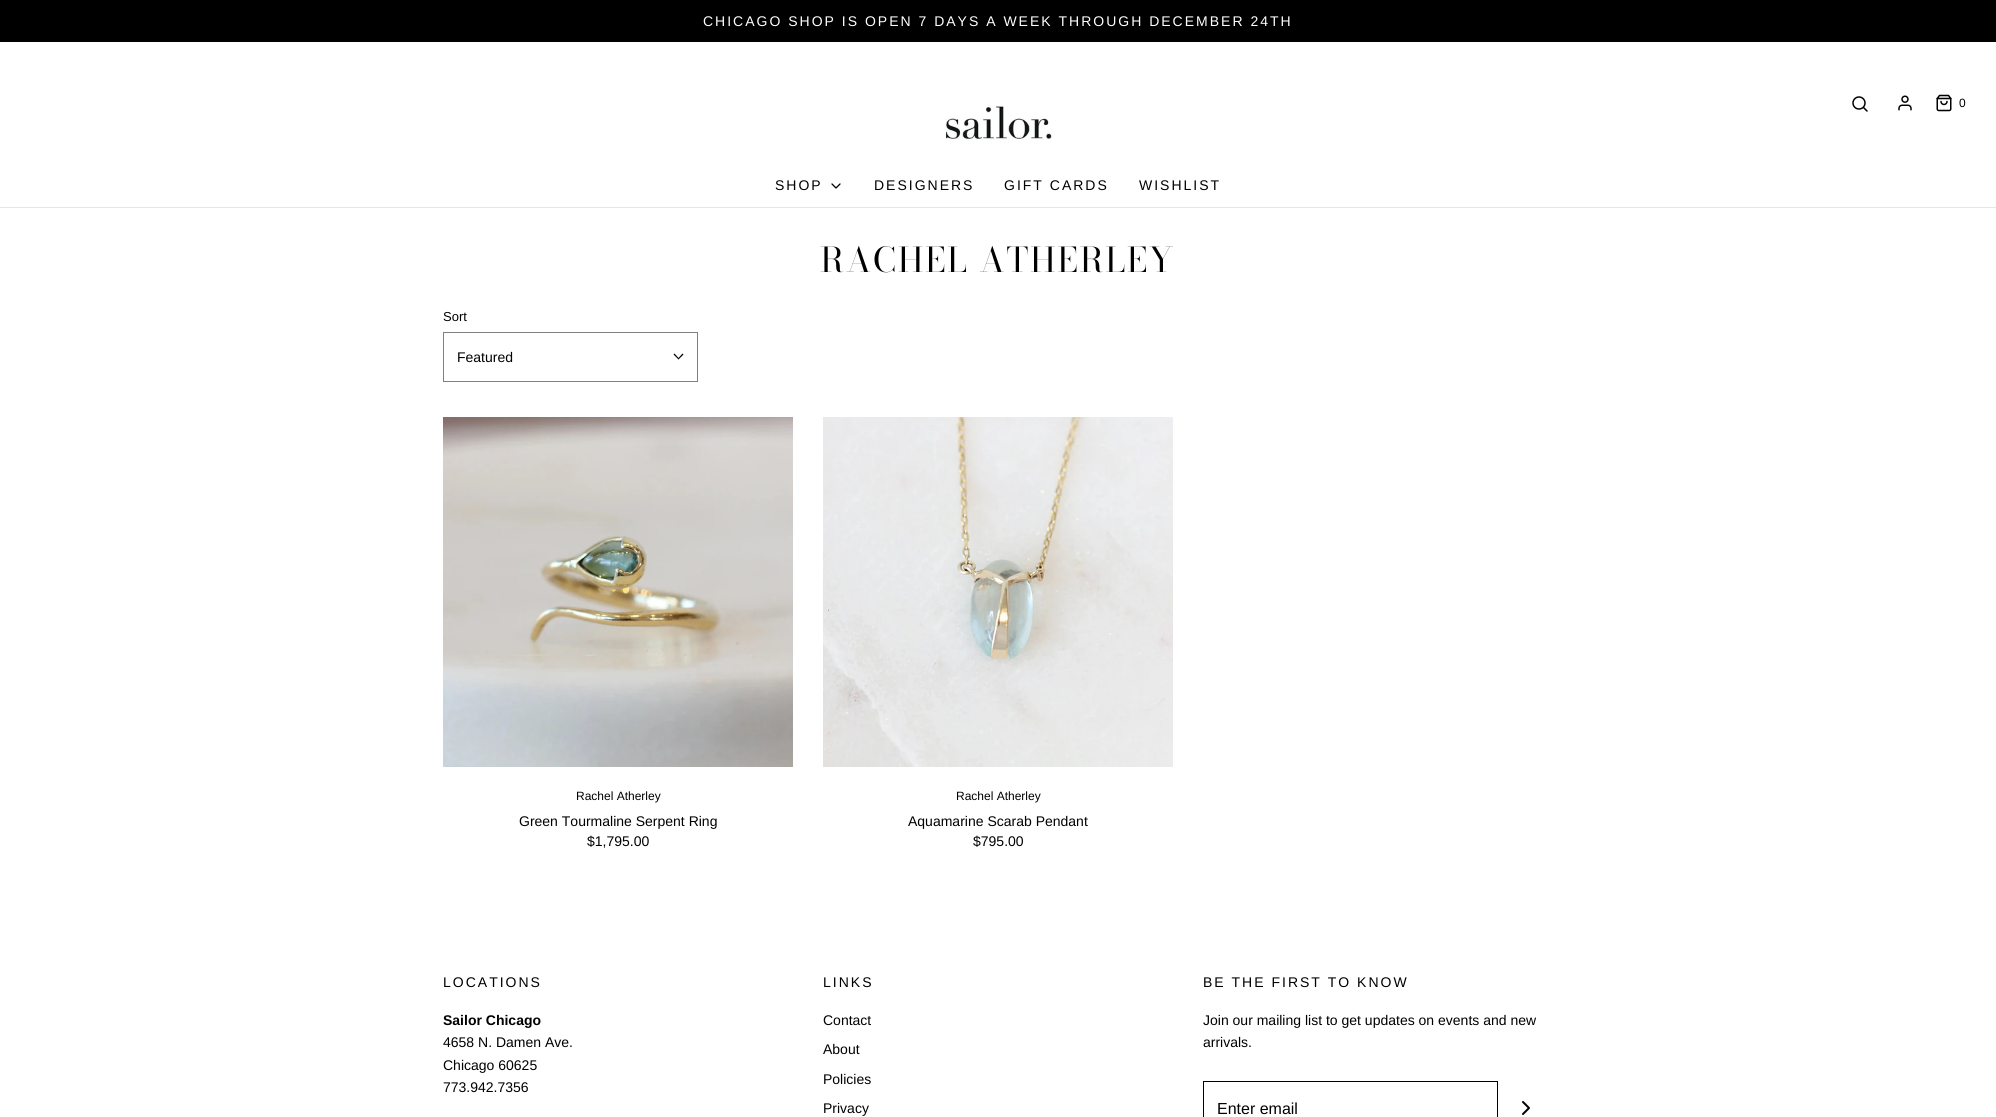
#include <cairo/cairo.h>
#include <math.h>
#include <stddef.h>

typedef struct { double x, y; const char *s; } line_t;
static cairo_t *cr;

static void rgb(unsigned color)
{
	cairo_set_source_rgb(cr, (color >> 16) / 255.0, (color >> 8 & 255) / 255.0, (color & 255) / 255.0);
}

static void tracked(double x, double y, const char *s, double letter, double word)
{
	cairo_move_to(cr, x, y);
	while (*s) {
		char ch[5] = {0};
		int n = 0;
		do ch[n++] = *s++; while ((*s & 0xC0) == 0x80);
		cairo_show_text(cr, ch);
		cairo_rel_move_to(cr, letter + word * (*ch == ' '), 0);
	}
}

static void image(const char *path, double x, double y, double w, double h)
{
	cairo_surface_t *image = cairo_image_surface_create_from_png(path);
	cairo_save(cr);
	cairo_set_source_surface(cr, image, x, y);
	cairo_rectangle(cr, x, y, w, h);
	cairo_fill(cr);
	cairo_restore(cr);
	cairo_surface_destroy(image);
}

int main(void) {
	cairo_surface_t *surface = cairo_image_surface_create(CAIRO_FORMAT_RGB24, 1996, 1117);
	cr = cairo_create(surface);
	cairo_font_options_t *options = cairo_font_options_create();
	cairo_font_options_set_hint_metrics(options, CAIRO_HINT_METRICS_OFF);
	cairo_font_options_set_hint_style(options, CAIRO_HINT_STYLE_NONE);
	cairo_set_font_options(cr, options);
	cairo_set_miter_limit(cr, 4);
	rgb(0xffffff);
	cairo_paint(cr);
	rgb(0x000000);
	cairo_rectangle(cr, 0, 0, 1996, 42);
	cairo_fill(cr);
	rgb(0xe6e6e6);
	cairo_rectangle(cr, 0, 207, 1996, 1);
	cairo_fill(cr);
	cairo_arc(cr, 1859, 103, 6, 0, 2 * M_PI);
	rgb(0x000000);
	cairo_set_line_width(cr, 1.5);
	cairo_stroke(cr);
	cairo_new_path(cr);
	cairo_move_to(cr, 1867, 111);
	cairo_line_to(cr, 1863.5, 107.5);
	cairo_set_line_cap(cr, CAIRO_LINE_CAP_ROUND);
	cairo_set_line_join(cr, CAIRO_LINE_JOIN_ROUND);
	cairo_stroke(cr);
	image("img/1.png", 1898, 95, 14, 16);
	image("img/2.png", 1936, 94, 16, 18);
	image("img/3.png", 945, 105, 108, 35);
	cairo_new_path(cr);
	cairo_move_to(cr, 832, 184);
	cairo_line_to(cr, 836, 188);
	cairo_line_to(cr, 840, 184);
	cairo_set_line_width(cr, 1.3);
	cairo_stroke(cr);
	cairo_rectangle(cr, 443.5, 332.5, 254, 49);
	rgb(0x808080);
	cairo_set_line_width(cr, 1);
	cairo_set_line_cap(cr, CAIRO_LINE_CAP_BUTT);
	cairo_set_line_join(cr, CAIRO_LINE_JOIN_MITER);
	cairo_stroke(cr);
	rgb(0x000000);
	cairo_new_path(cr);
	cairo_move_to(cr, 682.5, 353.5);
	cairo_line_to(cr, 683.5, 354.5);
	cairo_line_to(cr, 678.5, 359.5);
	cairo_line_to(cr, 678, 358.5);
	cairo_close_path(cr);
	cairo_fill(cr);
	cairo_new_path(cr);
	cairo_move_to(cr, 674.5, 353.5);
	cairo_line_to(cr, 679, 358.5);
	cairo_line_to(cr, 678.5, 359.5);
	cairo_line_to(cr, 673.5, 354.5);
	cairo_close_path(cr);
	cairo_fill(cr);
	image("img/4.png", 443, 417, 350, 350);
	image("img/5.png", 823, 417, 350, 350);
	cairo_rectangle(cr, 1203.5, 1081.5, 294, 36);
	cairo_stroke(cr);
	cairo_new_path(cr);
	cairo_move_to(cr, 1523, 1114);
	cairo_line_to(cr, 1529, 1108);
	cairo_line_to(cr, 1523, 1102);
	cairo_set_line_width(cr, 2);
	cairo_set_line_cap(cr, CAIRO_LINE_CAP_ROUND);
	cairo_set_line_join(cr, CAIRO_LINE_JOIN_ROUND);
	cairo_stroke(cr);
	cairo_select_font_face(cr, "Liberation Sans", CAIRO_FONT_SLANT_NORMAL, CAIRO_FONT_WEIGHT_NORMAL);
	cairo_set_font_size(cr, 14);
	rgb(0xffffff);
	tracked(703, 26, "CHICAGO SHOP IS OPEN 7 DAYS A WEEK THROUGH DECEMBER 24TH", 2, 0);
	cairo_set_font_size(cr, 12);
	rgb(0x000000);
	cairo_move_to(cr, 1959, 107);
	cairo_show_text(cr, "0");
	cairo_set_font_size(cr, 14);
	{
		static const line_t items[] = {
			{775, 190, "SHOP"},
			{874, 190, "DESIGNERS"},
			{1004, 190, "GIFT CARDS"},
			{1139, 190, "WISHLIST"},
		};
		for (size_t i = 0; i < sizeof items / sizeof *items; i++) {
			tracked(items[i].x, items[i].y, items[i].s, 2, 0);
		}
	}
	cairo_select_font_face(cr, "Bodoni Moda", CAIRO_FONT_SLANT_NORMAL, CAIRO_FONT_WEIGHT_NORMAL);
	cairo_set_font_size(cr, 34);
	tracked(820, 272, "RACHEL ATHERLEY", 2, 0);
	cairo_select_font_face(cr, "Liberation Sans", CAIRO_FONT_SLANT_NORMAL, CAIRO_FONT_WEIGHT_NORMAL);
	cairo_set_font_size(cr, 13);
	cairo_move_to(cr, 443, 321);
	cairo_show_text(cr, "Sort");
	cairo_set_font_size(cr, 14);
	cairo_move_to(cr, 457, 362);
	cairo_show_text(cr, "Featured");
	cairo_set_font_size(cr, 12);
	cairo_move_to(cr, 576, 800);
	cairo_show_text(cr, "Rachel Atherley");
	cairo_set_font_size(cr, 14);
	cairo_move_to(cr, 519, 826);
	cairo_show_text(cr, "Green Tourmaline Serpent Ring");
	cairo_move_to(cr, 587, 846);
	cairo_show_text(cr, "$1,795.00");
	cairo_set_font_size(cr, 12);
	cairo_move_to(cr, 956, 800);
	cairo_show_text(cr, "Rachel Atherley");
	cairo_set_font_size(cr, 14);
	cairo_move_to(cr, 908, 826);
	cairo_show_text(cr, "Aquamarine Scarab Pendant");
	cairo_move_to(cr, 973, 846);
	cairo_show_text(cr, "$795.00");
	tracked(443, 987, "LOCATIONS", 2, 0);
	cairo_select_font_face(cr, "Liberation Sans", CAIRO_FONT_SLANT_NORMAL, CAIRO_FONT_WEIGHT_BOLD);
	cairo_move_to(cr, 443, 1025);
	cairo_show_text(cr, "Sailor Chicago");
	cairo_select_font_face(cr, "Liberation Sans", CAIRO_FONT_SLANT_NORMAL, CAIRO_FONT_WEIGHT_NORMAL);
	{
		static const line_t items[] = {
			{443, 1047, "4658 N. Damen Ave."},
			{443, 1070, "Chicago 60625"},
			{443, 1092, "773.942.7356"},
		};
		for (size_t i = 0; i < sizeof items / sizeof *items; i++) {
			cairo_move_to(cr, items[i].x, items[i].y);
			cairo_show_text(cr, items[i].s);
		}
	}
	tracked(823, 987, "LINKS", 2, 0);
	{
		static const line_t items[] = {
			{823, 1025, "Contact"},
			{823, 1054, "About"},
			{823, 1084, "Policies"},
			{823, 1113, "Privacy"},
		};
		for (size_t i = 0; i < sizeof items / sizeof *items; i++) {
			cairo_move_to(cr, items[i].x, items[i].y);
			cairo_show_text(cr, items[i].s);
		}
	}
	tracked(1203, 987, "BE THE FIRST TO KNOW", 2, 0);
	cairo_move_to(cr, 1203, 1025);
	cairo_show_text(cr, "Join our mailing list to get updates on events and new");
	cairo_move_to(cr, 1203, 1047);
	cairo_show_text(cr, "arrivals.");
	cairo_set_font_size(cr, 16);
	cairo_move_to(cr, 1217, 1114);
	cairo_show_text(cr, "Enter email");
	cairo_surface_write_to_png(surface, "page.png");
	cairo_font_options_destroy(options);
	cairo_destroy(cr);
	cairo_surface_destroy(surface);
	return 0;
}
